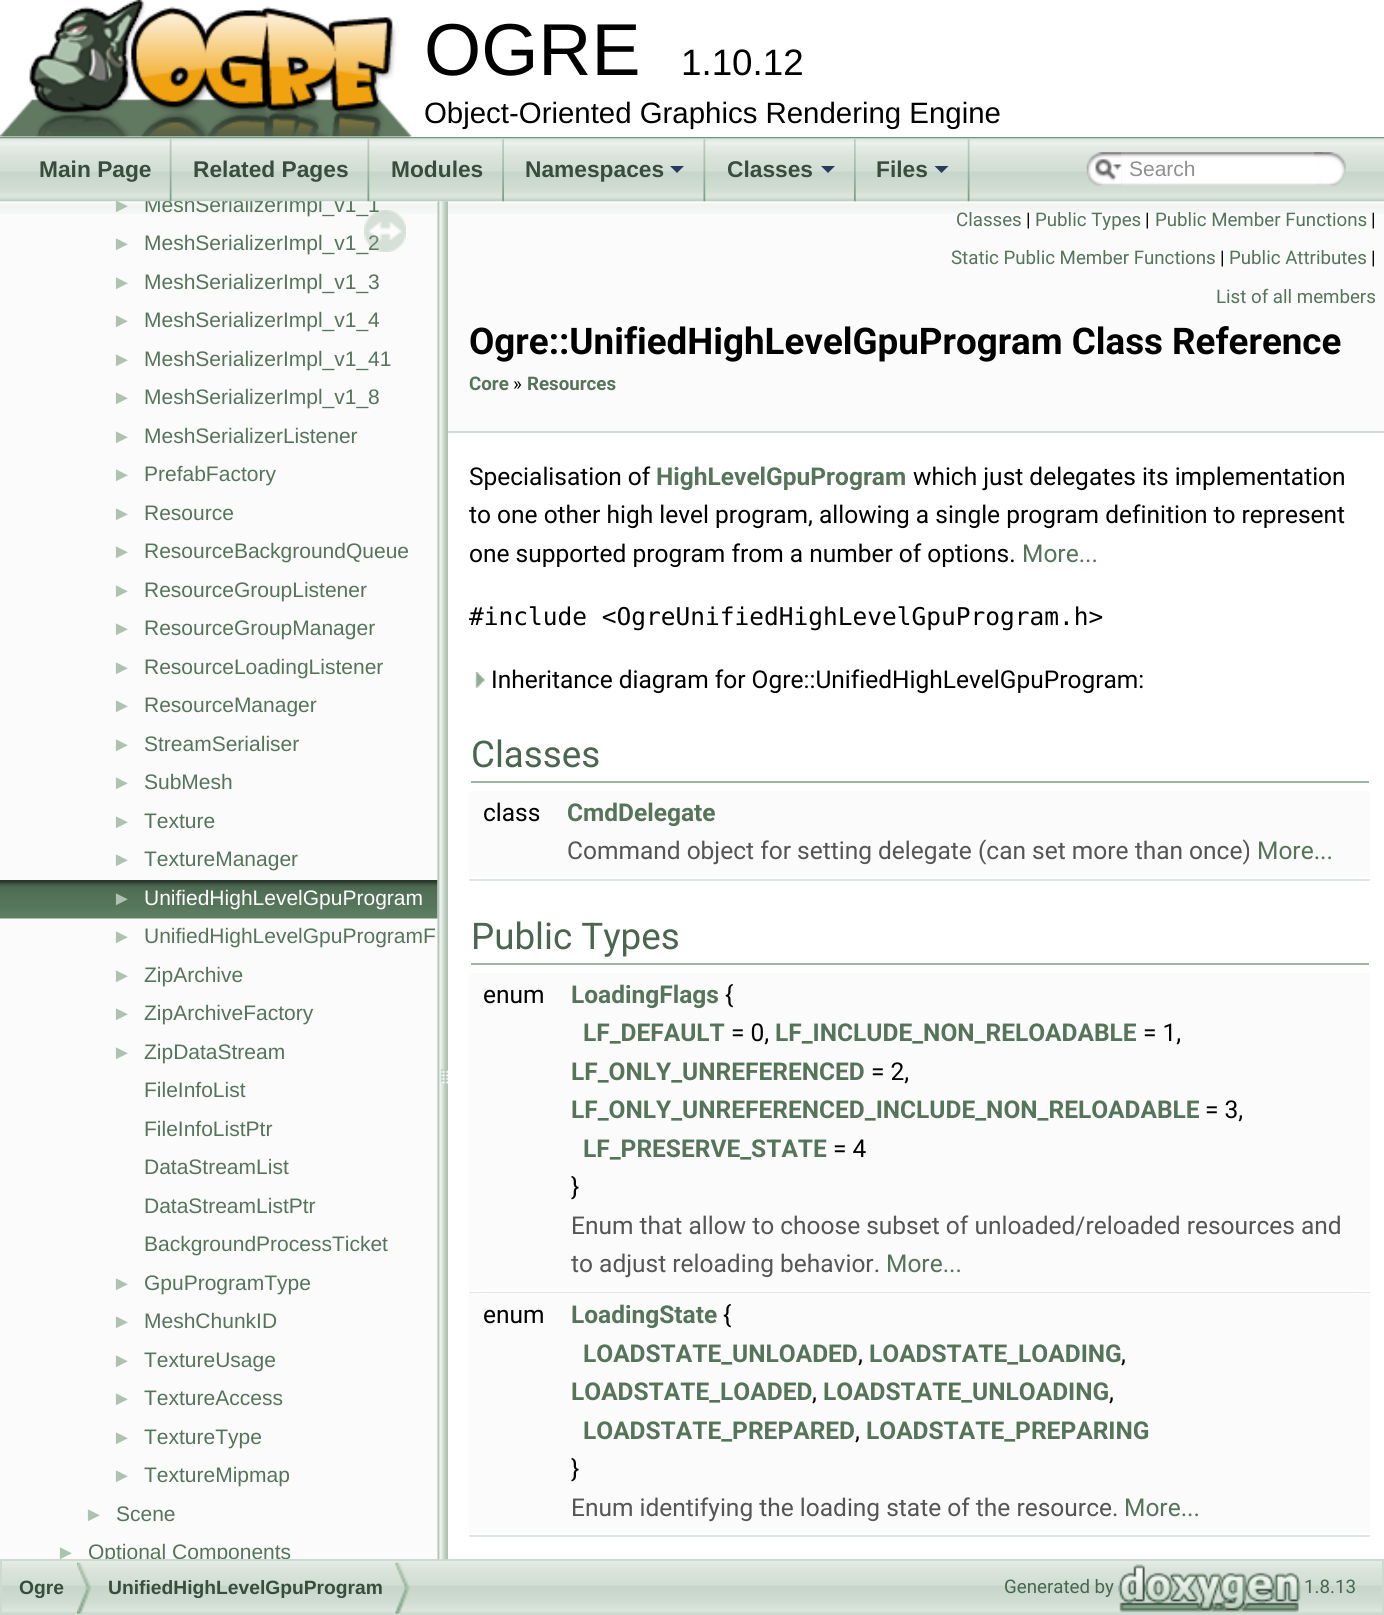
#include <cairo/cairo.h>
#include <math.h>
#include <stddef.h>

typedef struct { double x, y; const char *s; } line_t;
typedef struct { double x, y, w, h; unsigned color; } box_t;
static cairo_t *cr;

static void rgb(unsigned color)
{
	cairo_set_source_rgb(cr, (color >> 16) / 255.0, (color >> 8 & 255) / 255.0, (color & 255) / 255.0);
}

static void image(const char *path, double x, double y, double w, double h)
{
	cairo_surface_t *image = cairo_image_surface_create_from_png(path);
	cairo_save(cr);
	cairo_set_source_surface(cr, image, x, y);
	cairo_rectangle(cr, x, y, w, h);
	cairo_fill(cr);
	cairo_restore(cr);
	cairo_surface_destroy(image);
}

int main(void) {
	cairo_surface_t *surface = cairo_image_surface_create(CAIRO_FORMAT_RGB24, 1384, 1615);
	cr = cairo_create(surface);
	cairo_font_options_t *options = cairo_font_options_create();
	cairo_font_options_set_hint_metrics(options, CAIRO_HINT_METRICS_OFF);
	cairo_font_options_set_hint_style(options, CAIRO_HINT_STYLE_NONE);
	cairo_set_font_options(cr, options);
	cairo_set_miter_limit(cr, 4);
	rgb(0xffffff);
	cairo_paint(cr);
	rgb(0x709777);
	cairo_rectangle(cr, 0, 137, 1384, 2);
	cairo_fill(cr);
	image("img/1.png", 0, 0, 412, 137);
	rgb(0xfafbfa);
	cairo_rectangle(cr, 0, 201, 438, 1358);
	cairo_fill(cr);
	image("img/13.png", 0, 203, 438, 11);
	image("img/14.png", 0, 880, 438, 39);
	image("img/19.png", 2, 1561, 1380, 52);
	cairo_rectangle(cr, 1, 1560, 1382, 54);
	rgb(0xccdacf);
	cairo_stroke(cr);
	image("img/16.png", 437, 201, 11, 1359);
	rgb(0xfafbfa);
	cairo_rectangle(cr, 448, 201, 936, 230);
	cairo_fill(cr);
	image("img/17.png", 448, 203, 936, 11);
	rgb(0xcedbd0);
	cairo_rectangle(cr, 448, 431, 936, 2);
	cairo_fill(cr);
	image("img/18.png", 475, 672, 10, 16);
	{
		static const box_t items[] = {
			{471, 781, 898, 2, 0x9cb6a0},
			{469, 791, 901, 40, 0xfafbfa},
			{469, 831, 901, 46, 0xfafbfa},
			{469, 879, 901, 2, 0xdee4f0},
			{471, 963, 898, 2, 0x9cb6a0},
			{469, 973, 901, 233, 0xfafbfa},
			{469, 1206, 901, 84, 0xfafbfa},
			{469, 1292, 901, 1, 0xdee4f0},
			{469, 1293, 901, 195, 0xfafbfa},
			{469, 1488, 901, 45, 0xfafbfa},
			{469, 1535, 901, 2, 0xdee4f0},
		};
		for (size_t i = 0; i < sizeof items / sizeof *items; i++) {
			rgb(items[i].color);
			cairo_rectangle(cr, items[i].x, items[i].y, items[i].w, items[i].h);
			cairo_fill(cr);
		}
	}
	image("img/20.png", 77, 1562, 14, 52);
	image("img/21.png", 395, 1562, 15, 52);
	image("img/22.png", 1118, 1564, 183, 49);
	cairo_select_font_face(cr, "Liberation Sans", CAIRO_FONT_SLANT_NORMAL, CAIRO_FONT_WEIGHT_NORMAL);
	cairo_set_font_size(cr, 73.5);
	rgb(0x000000);
	cairo_move_to(cr, 424, 75);
	cairo_show_text(cr, "OGRE");
	cairo_set_font_size(cr, 36.75);
	cairo_move_to(cr, 681, 75);
	cairo_show_text(cr, "1.10.12");
	cairo_set_font_size(cr, 29.4);
	cairo_move_to(cr, 424, 123);
	cairo_show_text(cr, "Object-Oriented Graphics Rendering Engine");
	cairo_set_font_size(cr, 20);
	rgb(0xadc3b0);
	cairo_move_to(cr, 112, 212);
	cairo_show_text(cr, "►");
	cairo_set_font_size(cr, 21);
	rgb(0x55745a);
	cairo_move_to(cr, 144, 212);
	cairo_show_text(cr, "MeshSerializerImpl_v1_1");
	image("img/2.png", 0, 138, 1384, 64);
	image("img/9.png", 1086, 152, 36, 34);
	image("img/10.png", 1095, 158, 27, 23);
	image("img/11.png", 1121, 152, 202, 34);
	image("img/12.png", 1314, 152, 32, 34);
	rgb(0x909090);
	cairo_move_to(cr, 1129, 176);
	cairo_show_text(cr, "Search");
	rgb(0x283a5d);
	cairo_new_path(cr);
	cairo_move_to(cr, 934.5, 166);
	cairo_line_to(cr, 948.5, 166);
	cairo_line_to(cr, 941.5, 173);
	cairo_close_path(cr);
	cairo_fill(cr);
	cairo_select_font_face(cr, "Liberation Sans", CAIRO_FONT_SLANT_NORMAL, CAIRO_FONT_WEIGHT_BOLD);
	cairo_set_font_size(cr, 22.75);
	rgb(0x384d3c);
	cairo_move_to(cr, 876, 177);
	cairo_show_text(cr, "Files");
	image("img/8.png", 967, 139, 3, 63);
	rgb(0x283a5d);
	cairo_new_path(cr);
	cairo_move_to(cr, 821, 166);
	cairo_line_to(cr, 835, 166);
	cairo_line_to(cr, 828, 173);
	cairo_close_path(cr);
	cairo_fill(cr);
	rgb(0x384d3c);
	cairo_move_to(cr, 727, 177);
	cairo_show_text(cr, "Classes");
	image("img/7.png", 854, 139, 2, 63);
	rgb(0x283a5d);
	cairo_new_path(cr);
	cairo_move_to(cr, 670, 166);
	cairo_line_to(cr, 684, 166);
	cairo_line_to(cr, 677, 173);
	cairo_close_path(cr);
	cairo_fill(cr);
	rgb(0x384d3c);
	cairo_move_to(cr, 525, 177);
	cairo_show_text(cr, "Namespaces");
	image("img/6.png", 703, 139, 3, 63);
	cairo_move_to(cr, 391, 177);
	cairo_show_text(cr, "Modules");
	image("img/5.png", 502, 139, 2, 63);
	cairo_move_to(cr, 193, 177);
	cairo_show_text(cr, "Related Pages");
	image("img/4.png", 367, 139, 3, 63);
	cairo_move_to(cr, 39, 177);
	cairo_show_text(cr, "Main Page");
	image("img/3.png", 169, 139, 3, 63);
	cairo_select_font_face(cr, "Liberation Sans", CAIRO_FONT_SLANT_NORMAL, CAIRO_FONT_WEIGHT_NORMAL);
	cairo_set_font_size(cr, 20);
	rgb(0xadc3b0);
	cairo_move_to(cr, 112, 250);
	cairo_show_text(cr, "►");
	cairo_set_font_size(cr, 21);
	rgb(0x55745a);
	cairo_move_to(cr, 144, 250);
	cairo_show_text(cr, "MeshSerializerImpl_v1_2");
	cairo_set_font_size(cr, 20);
	rgb(0xadc3b0);
	cairo_move_to(cr, 112, 289);
	cairo_show_text(cr, "►");
	cairo_set_font_size(cr, 21);
	rgb(0x55745a);
	cairo_move_to(cr, 144, 289);
	cairo_show_text(cr, "MeshSerializerImpl_v1_3");
	cairo_set_font_size(cr, 20);
	rgb(0xadc3b0);
	cairo_move_to(cr, 112, 327);
	cairo_show_text(cr, "►");
	cairo_set_font_size(cr, 21);
	rgb(0x55745a);
	cairo_move_to(cr, 144, 327);
	cairo_show_text(cr, "MeshSerializerImpl_v1_4");
	cairo_set_font_size(cr, 20);
	rgb(0xadc3b0);
	cairo_move_to(cr, 112, 366);
	cairo_show_text(cr, "►");
	cairo_set_font_size(cr, 21);
	rgb(0x55745a);
	cairo_move_to(cr, 144, 366);
	cairo_show_text(cr, "MeshSerializerImpl_v1_41");
	cairo_set_font_size(cr, 20);
	rgb(0xadc3b0);
	cairo_move_to(cr, 112, 404);
	cairo_show_text(cr, "►");
	cairo_set_font_size(cr, 21);
	rgb(0x55745a);
	cairo_move_to(cr, 144, 404);
	cairo_show_text(cr, "MeshSerializerImpl_v1_8");
	cairo_set_font_size(cr, 20);
	rgb(0xadc3b0);
	cairo_move_to(cr, 112, 443);
	cairo_show_text(cr, "►");
	cairo_set_font_size(cr, 21);
	rgb(0x55745a);
	cairo_move_to(cr, 144, 443);
	cairo_show_text(cr, "MeshSerializerListener");
	cairo_set_font_size(cr, 20);
	rgb(0xadc3b0);
	cairo_move_to(cr, 112, 481);
	cairo_show_text(cr, "►");
	cairo_set_font_size(cr, 21);
	rgb(0x55745a);
	cairo_move_to(cr, 144, 481);
	cairo_show_text(cr, "PrefabFactory");
	cairo_set_font_size(cr, 20);
	rgb(0xadc3b0);
	cairo_move_to(cr, 112, 520);
	cairo_show_text(cr, "►");
	cairo_set_font_size(cr, 21);
	rgb(0x55745a);
	cairo_move_to(cr, 144, 520);
	cairo_show_text(cr, "Resource");
	cairo_set_font_size(cr, 20);
	rgb(0xadc3b0);
	cairo_move_to(cr, 112, 558);
	cairo_show_text(cr, "►");
	cairo_set_font_size(cr, 21);
	rgb(0x55745a);
	cairo_move_to(cr, 144, 558);
	cairo_show_text(cr, "ResourceBackgroundQueue");
	cairo_set_font_size(cr, 20);
	rgb(0xadc3b0);
	cairo_move_to(cr, 112, 597);
	cairo_show_text(cr, "►");
	cairo_set_font_size(cr, 21);
	rgb(0x55745a);
	cairo_move_to(cr, 144, 597);
	cairo_show_text(cr, "ResourceGroupListener");
	cairo_set_font_size(cr, 20);
	rgb(0xadc3b0);
	cairo_move_to(cr, 112, 635);
	cairo_show_text(cr, "►");
	cairo_set_font_size(cr, 21);
	rgb(0x55745a);
	cairo_move_to(cr, 144, 635);
	cairo_show_text(cr, "ResourceGroupManager");
	cairo_set_font_size(cr, 20);
	rgb(0xadc3b0);
	cairo_move_to(cr, 112, 674);
	cairo_show_text(cr, "►");
	cairo_set_font_size(cr, 21);
	rgb(0x55745a);
	cairo_move_to(cr, 144, 674);
	cairo_show_text(cr, "ResourceLoadingListener");
	cairo_set_font_size(cr, 20);
	rgb(0xadc3b0);
	cairo_move_to(cr, 112, 712);
	cairo_show_text(cr, "►");
	cairo_set_font_size(cr, 21);
	rgb(0x55745a);
	cairo_move_to(cr, 144, 712);
	cairo_show_text(cr, "ResourceManager");
	cairo_set_font_size(cr, 20);
	rgb(0xadc3b0);
	cairo_move_to(cr, 112, 751);
	cairo_show_text(cr, "►");
	cairo_set_font_size(cr, 21);
	rgb(0x55745a);
	cairo_move_to(cr, 144, 751);
	cairo_show_text(cr, "StreamSerialiser");
	cairo_set_font_size(cr, 20);
	rgb(0xadc3b0);
	cairo_move_to(cr, 112, 789);
	cairo_show_text(cr, "►");
	cairo_set_font_size(cr, 21);
	rgb(0x55745a);
	cairo_move_to(cr, 144, 789);
	cairo_show_text(cr, "SubMesh");
	cairo_set_font_size(cr, 20);
	rgb(0xadc3b0);
	cairo_move_to(cr, 112, 828);
	cairo_show_text(cr, "►");
	cairo_set_font_size(cr, 21);
	rgb(0x55745a);
	cairo_move_to(cr, 144, 828);
	cairo_show_text(cr, "Texture");
	cairo_set_font_size(cr, 20);
	rgb(0xadc3b0);
	cairo_move_to(cr, 112, 866);
	cairo_show_text(cr, "►");
	cairo_set_font_size(cr, 21);
	rgb(0x55745a);
	cairo_move_to(cr, 144, 866);
	cairo_show_text(cr, "TextureManager");
	cairo_set_font_size(cr, 20);
	rgb(0xadc3b0);
	cairo_move_to(cr, 112, 905);
	cairo_show_text(cr, "►");
	cairo_set_font_size(cr, 21);
	rgb(0xffffff);
	cairo_move_to(cr, 144, 905);
	cairo_show_text(cr, "UnifiedHighLevelGpuProgram");
	cairo_set_font_size(cr, 20);
	rgb(0xadc3b0);
	cairo_move_to(cr, 112, 943);
	cairo_show_text(cr, "►");
	cairo_set_font_size(cr, 21);
	rgb(0x55745a);
	cairo_move_to(cr, 144, 943);
	cairo_show_text(cr, "UnifiedHighLevelGpuProgramF");
	cairo_set_font_size(cr, 20);
	rgb(0xadc3b0);
	cairo_move_to(cr, 112, 982);
	cairo_show_text(cr, "►");
	cairo_set_font_size(cr, 21);
	rgb(0x55745a);
	cairo_move_to(cr, 144, 982);
	cairo_show_text(cr, "ZipArchive");
	cairo_set_font_size(cr, 20);
	rgb(0xadc3b0);
	cairo_move_to(cr, 112, 1020);
	cairo_show_text(cr, "►");
	cairo_set_font_size(cr, 21);
	rgb(0x55745a);
	cairo_move_to(cr, 144, 1020);
	cairo_show_text(cr, "ZipArchiveFactory");
	cairo_set_font_size(cr, 20);
	rgb(0xadc3b0);
	cairo_move_to(cr, 112, 1059);
	cairo_show_text(cr, "►");
	cairo_set_font_size(cr, 21);
	rgb(0x55745a);
	{
		static const line_t items[] = {
			{144, 1059, "ZipDataStream"},
			{144, 1097, "FileInfoList"},
			{144, 1136, "FileInfoListPtr"},
			{144, 1174, "DataStreamList"},
			{144, 1213, "DataStreamListPtr"},
			{144, 1251, "BackgroundProcessTicket"},
		};
		for (size_t i = 0; i < sizeof items / sizeof *items; i++) {
			cairo_move_to(cr, items[i].x, items[i].y);
			cairo_show_text(cr, items[i].s);
		}
	}
	cairo_set_font_size(cr, 20);
	rgb(0xadc3b0);
	cairo_move_to(cr, 112, 1290);
	cairo_show_text(cr, "►");
	cairo_set_font_size(cr, 21);
	rgb(0x55745a);
	cairo_move_to(cr, 144, 1290);
	cairo_show_text(cr, "GpuProgramType");
	cairo_set_font_size(cr, 20);
	rgb(0xadc3b0);
	cairo_move_to(cr, 112, 1328);
	cairo_show_text(cr, "►");
	cairo_set_font_size(cr, 21);
	rgb(0x55745a);
	cairo_move_to(cr, 144, 1328);
	cairo_show_text(cr, "MeshChunkID");
	cairo_set_font_size(cr, 20);
	rgb(0xadc3b0);
	cairo_move_to(cr, 112, 1367);
	cairo_show_text(cr, "►");
	cairo_set_font_size(cr, 21);
	rgb(0x55745a);
	cairo_move_to(cr, 144, 1367);
	cairo_show_text(cr, "TextureUsage");
	cairo_set_font_size(cr, 20);
	rgb(0xadc3b0);
	cairo_move_to(cr, 112, 1405);
	cairo_show_text(cr, "►");
	cairo_set_font_size(cr, 21);
	rgb(0x55745a);
	cairo_move_to(cr, 144, 1405);
	cairo_show_text(cr, "TextureAccess");
	cairo_set_font_size(cr, 20);
	rgb(0xadc3b0);
	cairo_move_to(cr, 112, 1444);
	cairo_show_text(cr, "►");
	cairo_set_font_size(cr, 21);
	rgb(0x55745a);
	cairo_move_to(cr, 144, 1444);
	cairo_show_text(cr, "TextureType");
	cairo_set_font_size(cr, 20);
	rgb(0xadc3b0);
	cairo_move_to(cr, 112, 1482);
	cairo_show_text(cr, "►");
	cairo_set_font_size(cr, 21);
	rgb(0x55745a);
	cairo_move_to(cr, 144, 1482);
	cairo_show_text(cr, "TextureMipmap");
	cairo_set_font_size(cr, 20);
	rgb(0xadc3b0);
	cairo_move_to(cr, 84, 1521);
	cairo_show_text(cr, "►");
	cairo_set_font_size(cr, 21);
	rgb(0x55745a);
	cairo_move_to(cr, 116, 1521);
	cairo_show_text(cr, "Scene");
	cairo_set_font_size(cr, 20);
	rgb(0xadc3b0);
	cairo_move_to(cr, 56, 1559);
	cairo_show_text(cr, "►");
	cairo_save(cr);
	cairo_rectangle(cr, 0, 201, 438, 1358);
	cairo_clip(cr);
	cairo_set_font_size(cr, 21);
	rgb(0x55745a);
	cairo_move_to(cr, 88, 1559);
	cairo_show_text(cr, "Optional Components");
	cairo_restore(cr);
	image("img/15.png", 364, 210, 42, 42);
	cairo_select_font_face(cr, "Roboto", CAIRO_FONT_SLANT_NORMAL, CAIRO_FONT_WEIGHT_NORMAL);
	cairo_set_font_size(cr, 18.7);
	rgb(0x55745a);
	cairo_move_to(cr, 956, 226);
	cairo_show_text(cr, "Classes");
	rgb(0x000000);
	cairo_move_to(cr, 1026, 226);
	cairo_show_text(cr, "|");
	rgb(0x55745a);
	cairo_move_to(cr, 1035, 226);
	cairo_show_text(cr, "Public Types");
	rgb(0x000000);
	cairo_move_to(cr, 1145, 226);
	cairo_show_text(cr, "|");
	rgb(0x55745a);
	cairo_move_to(cr, 1155, 226);
	cairo_show_text(cr, "Public Member Functions");
	rgb(0x000000);
	cairo_move_to(cr, 1371, 226);
	cairo_show_text(cr, "|");
	rgb(0x55745a);
	cairo_move_to(cr, 951, 264);
	cairo_show_text(cr, "Static Public Member Functions");
	rgb(0x000000);
	cairo_move_to(cr, 1220, 264);
	cairo_show_text(cr, "|");
	rgb(0x55745a);
	cairo_move_to(cr, 1229, 264);
	cairo_show_text(cr, "Public Attributes");
	rgb(0x000000);
	cairo_move_to(cr, 1371, 264);
	cairo_show_text(cr, "|");
	rgb(0x55745a);
	cairo_move_to(cr, 1216, 303);
	cairo_show_text(cr, "List of all members");
	cairo_select_font_face(cr, "Roboto", CAIRO_FONT_SLANT_NORMAL, CAIRO_FONT_WEIGHT_BOLD);
	cairo_set_font_size(cr, 36.75);
	rgb(0x000000);
	cairo_move_to(cr, 469, 354);
	cairo_show_text(cr, "Ogre::UnifiedHighLevelGpuProgram Class Reference");
	cairo_set_font_size(cr, 18.7);
	rgb(0x55745a);
	cairo_move_to(cr, 469, 390);
	cairo_show_text(cr, "Core");
	cairo_select_font_face(cr, "Roboto", CAIRO_FONT_SLANT_NORMAL, CAIRO_FONT_WEIGHT_NORMAL);
	rgb(0x000000);
	cairo_move_to(cr, 513, 390);
	cairo_show_text(cr, "»");
	cairo_select_font_face(cr, "Roboto", CAIRO_FONT_SLANT_NORMAL, CAIRO_FONT_WEIGHT_BOLD);
	rgb(0x55745a);
	cairo_move_to(cr, 527, 390);
	cairo_show_text(cr, "Resources");
	cairo_select_font_face(cr, "Roboto", CAIRO_FONT_SLANT_NORMAL, CAIRO_FONT_WEIGHT_NORMAL);
	cairo_set_font_size(cr, 24.5);
	rgb(0x000000);
	cairo_move_to(cr, 469, 485);
	cairo_show_text(cr, "Specialisation of");
	cairo_select_font_face(cr, "Roboto", CAIRO_FONT_SLANT_NORMAL, CAIRO_FONT_WEIGHT_BOLD);
	rgb(0x55745a);
	cairo_move_to(cr, 656, 485);
	cairo_show_text(cr, "HighLevelGpuProgram");
	cairo_select_font_face(cr, "Roboto", CAIRO_FONT_SLANT_NORMAL, CAIRO_FONT_WEIGHT_NORMAL);
	rgb(0x000000);
	{
		static const line_t items[] = {
			{913, 485, "which just delegates its implementation"},
			{469, 523, "to one other high level program, allowing a single program definition to represent"},
			{469, 562, "one supported program from a number of options."},
		};
		for (size_t i = 0; i < sizeof items / sizeof *items; i++) {
			cairo_move_to(cr, items[i].x, items[i].y);
			cairo_show_text(cr, items[i].s);
		}
	}
	rgb(0x55745a);
	cairo_move_to(cr, 1022, 562);
	cairo_show_text(cr, "More...");
	cairo_select_font_face(cr, "DejaVu Sans Mono", CAIRO_FONT_SLANT_NORMAL, CAIRO_FONT_WEIGHT_NORMAL);
	rgb(0x000000);
	cairo_move_to(cr, 469, 625);
	cairo_show_text(cr, "#include <OgreUnifiedHighLevelGpuProgram.h>");
	cairo_select_font_face(cr, "Roboto", CAIRO_FONT_SLANT_NORMAL, CAIRO_FONT_WEIGHT_NORMAL);
	cairo_move_to(cr, 491, 688);
	cairo_show_text(cr, "Inheritance diagram for Ogre::UnifiedHighLevelGpuProgram:");
	cairo_set_font_size(cr, 36.75);
	rgb(0x4a664f);
	cairo_move_to(cr, 471, 767);
	cairo_show_text(cr, "Classes");
	cairo_set_font_size(cr, 24.5);
	rgb(0x000000);
	cairo_move_to(cr, 483, 821);
	cairo_show_text(cr, "class");
	cairo_select_font_face(cr, "Roboto", CAIRO_FONT_SLANT_NORMAL, CAIRO_FONT_WEIGHT_BOLD);
	rgb(0x55745a);
	cairo_move_to(cr, 567, 821);
	cairo_show_text(cr, "CmdDelegate");
	cairo_select_font_face(cr, "Roboto", CAIRO_FONT_SLANT_NORMAL, CAIRO_FONT_WEIGHT_NORMAL);
	rgb(0x555555);
	cairo_move_to(cr, 567, 859);
	cairo_show_text(cr, "Command object for setting delegate (can set more than once)");
	rgb(0x55745a);
	cairo_move_to(cr, 1257, 859);
	cairo_show_text(cr, "More...");
	cairo_set_font_size(cr, 36.75);
	rgb(0x4a664f);
	cairo_move_to(cr, 471, 949);
	cairo_show_text(cr, "Public Types");
	cairo_set_font_size(cr, 24.5);
	rgb(0x000000);
	cairo_move_to(cr, 483, 1003);
	cairo_show_text(cr, "enum");
	cairo_select_font_face(cr, "Roboto", CAIRO_FONT_SLANT_NORMAL, CAIRO_FONT_WEIGHT_BOLD);
	rgb(0x55745a);
	cairo_move_to(cr, 571, 1003);
	cairo_show_text(cr, "LoadingFlags");
	cairo_select_font_face(cr, "Roboto", CAIRO_FONT_SLANT_NORMAL, CAIRO_FONT_WEIGHT_NORMAL);
	rgb(0x000000);
	cairo_move_to(cr, 725, 1003);
	cairo_show_text(cr, "{");
	cairo_select_font_face(cr, "Roboto", CAIRO_FONT_SLANT_NORMAL, CAIRO_FONT_WEIGHT_BOLD);
	rgb(0x55745a);
	cairo_move_to(cr, 583, 1041);
	cairo_show_text(cr, "LF_DEFAULT");
	cairo_select_font_face(cr, "Roboto", CAIRO_FONT_SLANT_NORMAL, CAIRO_FONT_WEIGHT_NORMAL);
	rgb(0x000000);
	cairo_move_to(cr, 731, 1041);
	cairo_show_text(cr, "= 0,");
	cairo_select_font_face(cr, "Roboto", CAIRO_FONT_SLANT_NORMAL, CAIRO_FONT_WEIGHT_BOLD);
	rgb(0x55745a);
	cairo_move_to(cr, 775, 1041);
	cairo_show_text(cr, "LF_INCLUDE_NON_RELOADABLE");
	cairo_select_font_face(cr, "Roboto", CAIRO_FONT_SLANT_NORMAL, CAIRO_FONT_WEIGHT_NORMAL);
	rgb(0x000000);
	cairo_move_to(cr, 1143, 1041);
	cairo_show_text(cr, "= 1,");
	cairo_select_font_face(cr, "Roboto", CAIRO_FONT_SLANT_NORMAL, CAIRO_FONT_WEIGHT_BOLD);
	rgb(0x55745a);
	cairo_move_to(cr, 571, 1080);
	cairo_show_text(cr, "LF_ONLY_UNREFERENCED");
	cairo_select_font_face(cr, "Roboto", CAIRO_FONT_SLANT_NORMAL, CAIRO_FONT_WEIGHT_NORMAL);
	rgb(0x000000);
	cairo_move_to(cr, 871, 1080);
	cairo_show_text(cr, "= 2,");
	cairo_select_font_face(cr, "Roboto", CAIRO_FONT_SLANT_NORMAL, CAIRO_FONT_WEIGHT_BOLD);
	rgb(0x55745a);
	cairo_move_to(cr, 571, 1118);
	cairo_show_text(cr, "LF_ONLY_UNREFERENCED_INCLUDE_NON_RELOADABLE");
	cairo_select_font_face(cr, "Roboto", CAIRO_FONT_SLANT_NORMAL, CAIRO_FONT_WEIGHT_NORMAL);
	rgb(0x000000);
	cairo_move_to(cr, 1205, 1118);
	cairo_show_text(cr, "= 3,");
	cairo_select_font_face(cr, "Roboto", CAIRO_FONT_SLANT_NORMAL, CAIRO_FONT_WEIGHT_BOLD);
	rgb(0x55745a);
	cairo_move_to(cr, 583, 1157);
	cairo_show_text(cr, "LF_PRESERVE_STATE");
	cairo_select_font_face(cr, "Roboto", CAIRO_FONT_SLANT_NORMAL, CAIRO_FONT_WEIGHT_NORMAL);
	rgb(0x000000);
	cairo_move_to(cr, 833, 1157);
	cairo_show_text(cr, "= 4");
	cairo_move_to(cr, 571, 1195);
	cairo_show_text(cr, "}");
	rgb(0x555555);
	cairo_move_to(cr, 571, 1234);
	cairo_show_text(cr, "Enum that allow to choose subset of unloaded/reloaded resources and");
	cairo_move_to(cr, 571, 1272);
	cairo_show_text(cr, "to adjust reloading behavior.");
	rgb(0x55745a);
	cairo_move_to(cr, 886, 1272);
	cairo_show_text(cr, "More...");
	rgb(0x000000);
	cairo_move_to(cr, 483, 1323);
	cairo_show_text(cr, "enum");
	cairo_select_font_face(cr, "Roboto", CAIRO_FONT_SLANT_NORMAL, CAIRO_FONT_WEIGHT_BOLD);
	rgb(0x55745a);
	cairo_move_to(cr, 571, 1323);
	cairo_show_text(cr, "LoadingState");
	cairo_select_font_face(cr, "Roboto", CAIRO_FONT_SLANT_NORMAL, CAIRO_FONT_WEIGHT_NORMAL);
	rgb(0x000000);
	cairo_move_to(cr, 723, 1323);
	cairo_show_text(cr, "{");
	cairo_select_font_face(cr, "Roboto", CAIRO_FONT_SLANT_NORMAL, CAIRO_FONT_WEIGHT_BOLD);
	rgb(0x55745a);
	cairo_move_to(cr, 583, 1362);
	cairo_show_text(cr, "LOADSTATE_UNLOADED");
	cairo_select_font_face(cr, "Roboto", CAIRO_FONT_SLANT_NORMAL, CAIRO_FONT_WEIGHT_NORMAL);
	rgb(0x000000);
	cairo_move_to(cr, 858, 1362);
	cairo_show_text(cr, ",");
	cairo_select_font_face(cr, "Roboto", CAIRO_FONT_SLANT_NORMAL, CAIRO_FONT_WEIGHT_BOLD);
	rgb(0x55745a);
	cairo_move_to(cr, 869, 1362);
	cairo_show_text(cr, "LOADSTATE_LOADING");
	cairo_select_font_face(cr, "Roboto", CAIRO_FONT_SLANT_NORMAL, CAIRO_FONT_WEIGHT_NORMAL);
	rgb(0x000000);
	cairo_move_to(cr, 1121, 1362);
	cairo_show_text(cr, ",");
	cairo_select_font_face(cr, "Roboto", CAIRO_FONT_SLANT_NORMAL, CAIRO_FONT_WEIGHT_BOLD);
	rgb(0x55745a);
	cairo_move_to(cr, 571, 1400);
	cairo_show_text(cr, "LOADSTATE_LOADED");
	cairo_select_font_face(cr, "Roboto", CAIRO_FONT_SLANT_NORMAL, CAIRO_FONT_WEIGHT_NORMAL);
	rgb(0x000000);
	cairo_move_to(cr, 812, 1400);
	cairo_show_text(cr, ",");
	cairo_select_font_face(cr, "Roboto", CAIRO_FONT_SLANT_NORMAL, CAIRO_FONT_WEIGHT_BOLD);
	rgb(0x55745a);
	cairo_move_to(cr, 823, 1400);
	cairo_show_text(cr, "LOADSTATE_UNLOADING");
	cairo_select_font_face(cr, "Roboto", CAIRO_FONT_SLANT_NORMAL, CAIRO_FONT_WEIGHT_NORMAL);
	rgb(0x000000);
	cairo_move_to(cr, 1109, 1400);
	cairo_show_text(cr, ",");
	cairo_select_font_face(cr, "Roboto", CAIRO_FONT_SLANT_NORMAL, CAIRO_FONT_WEIGHT_BOLD);
	rgb(0x55745a);
	cairo_move_to(cr, 583, 1439);
	cairo_show_text(cr, "LOADSTATE_PREPARED");
	cairo_select_font_face(cr, "Roboto", CAIRO_FONT_SLANT_NORMAL, CAIRO_FONT_WEIGHT_NORMAL);
	rgb(0x000000);
	cairo_move_to(cr, 855, 1439);
	cairo_show_text(cr, ",");
	cairo_select_font_face(cr, "Roboto", CAIRO_FONT_SLANT_NORMAL, CAIRO_FONT_WEIGHT_BOLD);
	rgb(0x55745a);
	cairo_move_to(cr, 866, 1439);
	cairo_show_text(cr, "LOADSTATE_PREPARING");
	cairo_select_font_face(cr, "Roboto", CAIRO_FONT_SLANT_NORMAL, CAIRO_FONT_WEIGHT_NORMAL);
	rgb(0x000000);
	cairo_move_to(cr, 571, 1477);
	cairo_show_text(cr, "}");
	rgb(0x555555);
	cairo_move_to(cr, 571, 1516);
	cairo_show_text(cr, "Enum identifying the loading state of the resource.");
	rgb(0x55745a);
	cairo_move_to(cr, 1124, 1516);
	cairo_show_text(cr, "More...");
	cairo_select_font_face(cr, "Liberation Sans", CAIRO_FONT_SLANT_NORMAL, CAIRO_FONT_WEIGHT_BOLD);
	cairo_set_font_size(cr, 19.25);
	rgb(0x384d3c);
	cairo_move_to(cr, 19, 1594);
	cairo_show_text(cr, "Ogre");
	cairo_move_to(cr, 108, 1594);
	cairo_show_text(cr, "UnifiedHighLevelGpuProgram");
	cairo_select_font_face(cr, "Roboto", CAIRO_FONT_SLANT_NORMAL, CAIRO_FONT_WEIGHT_NORMAL);
	cairo_set_font_size(cr, 18.7);
	rgb(0x4a664f);
	cairo_move_to(cr, 1004, 1593);
	cairo_show_text(cr, "Generated by");
	cairo_move_to(cr, 1304, 1593);
	cairo_show_text(cr, "1.8.13");
	cairo_surface_write_to_png(surface, "page.png");
	cairo_font_options_destroy(options);
	cairo_destroy(cr);
	cairo_surface_destroy(surface);
	return 0;
}
